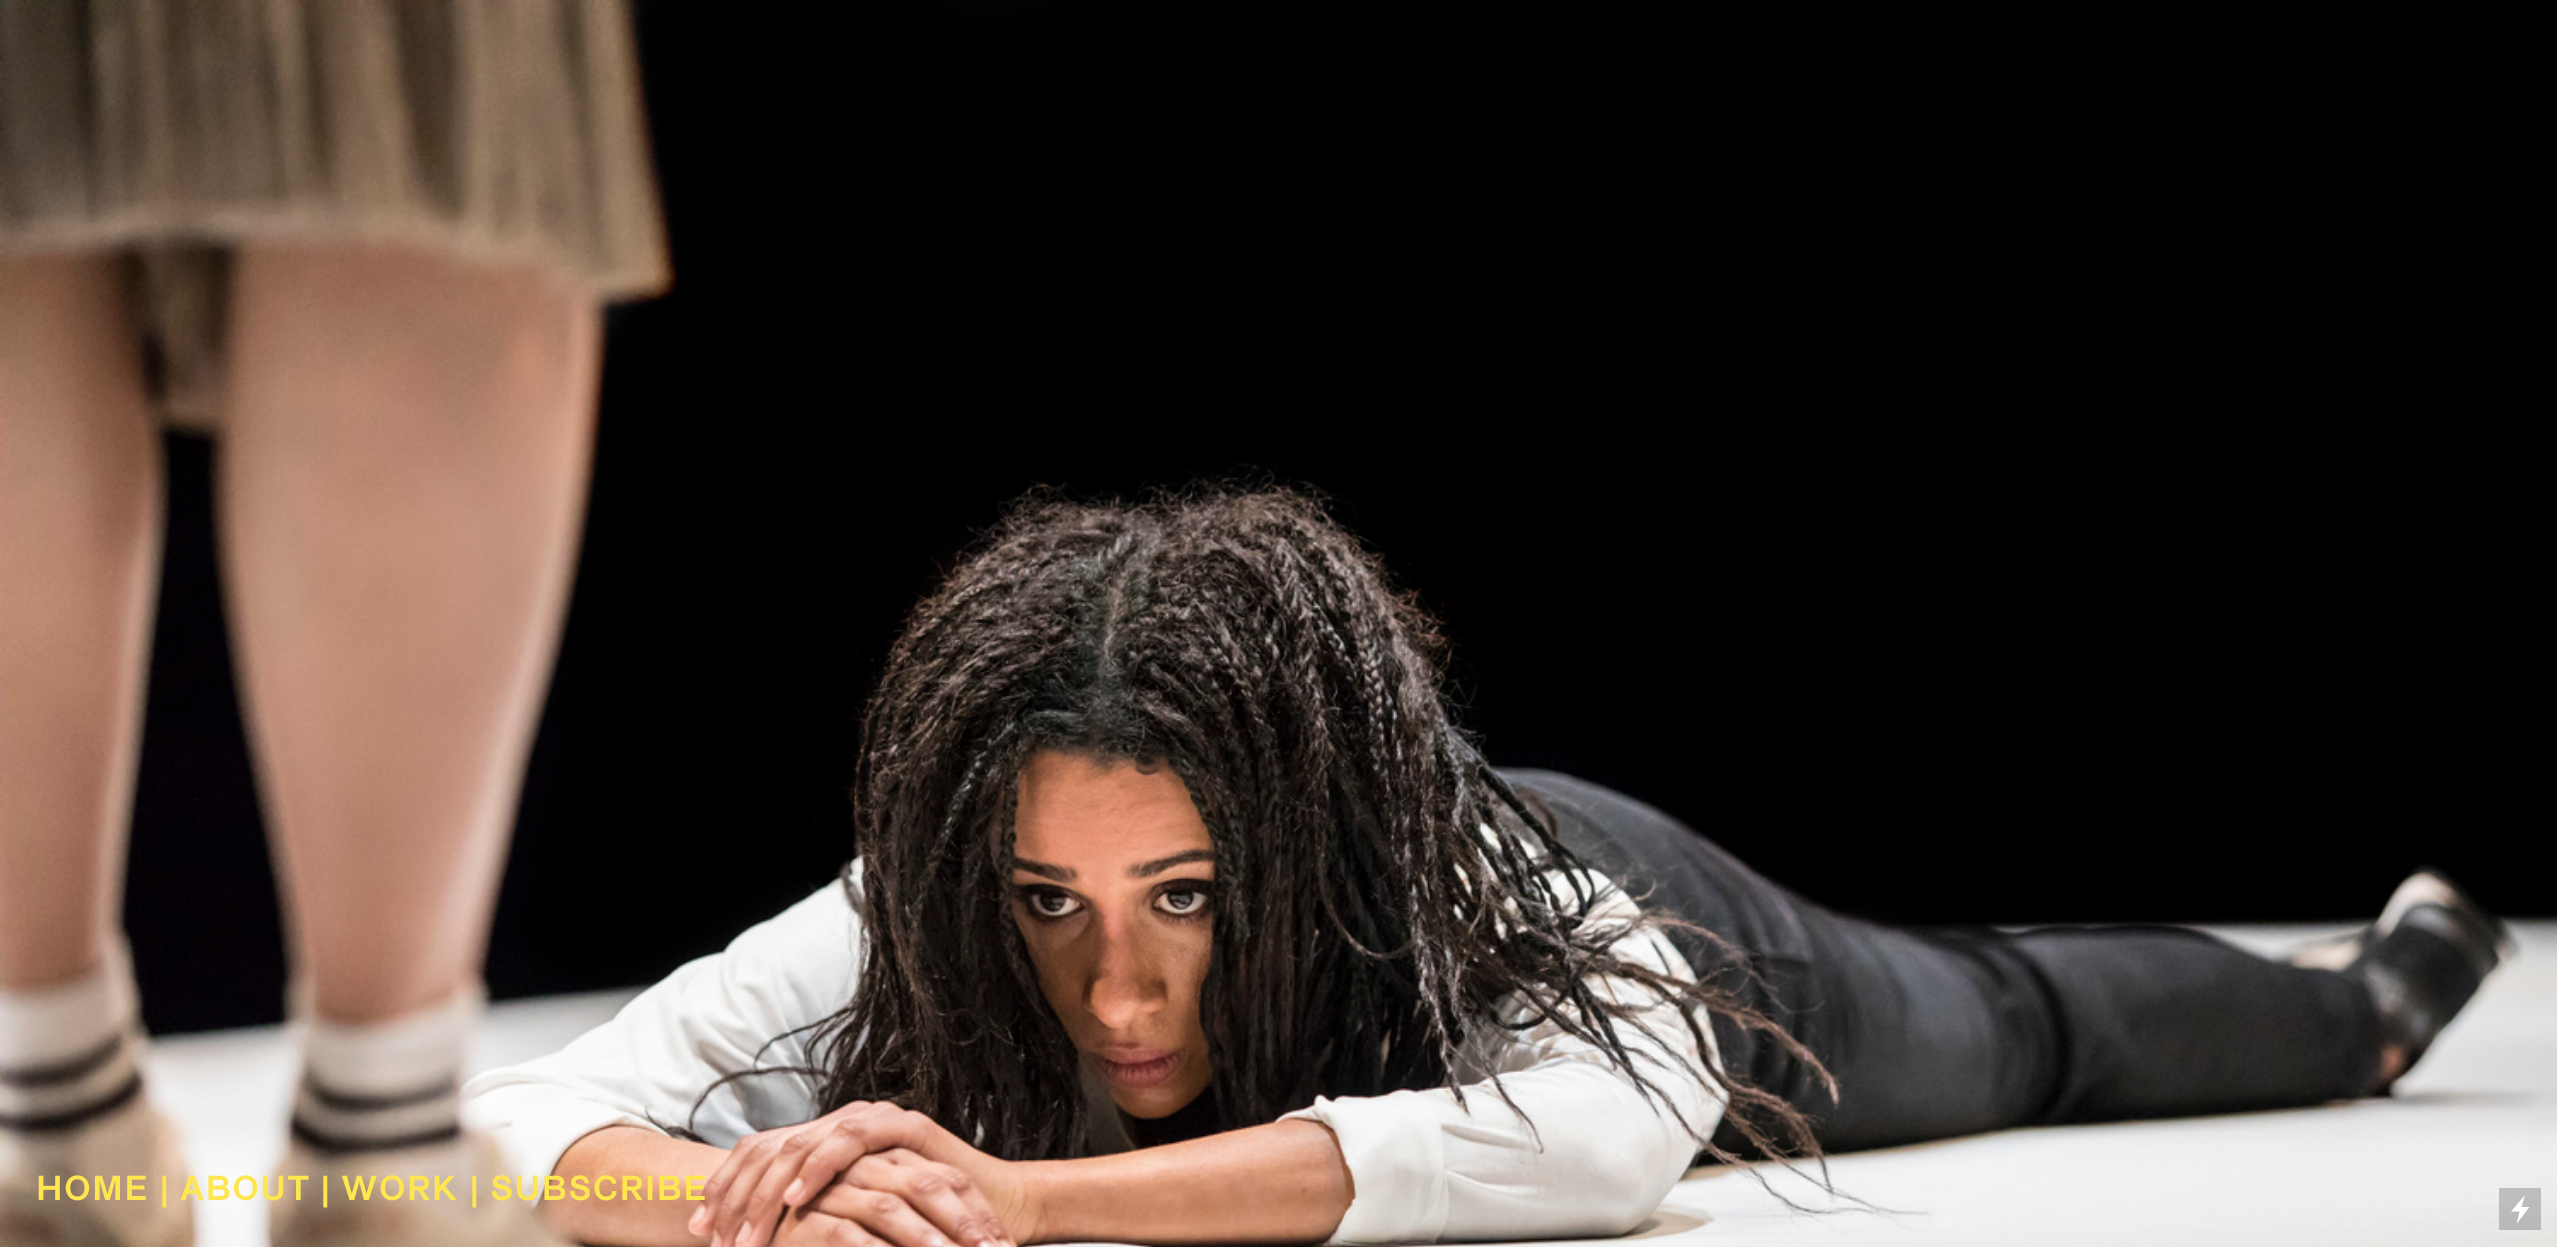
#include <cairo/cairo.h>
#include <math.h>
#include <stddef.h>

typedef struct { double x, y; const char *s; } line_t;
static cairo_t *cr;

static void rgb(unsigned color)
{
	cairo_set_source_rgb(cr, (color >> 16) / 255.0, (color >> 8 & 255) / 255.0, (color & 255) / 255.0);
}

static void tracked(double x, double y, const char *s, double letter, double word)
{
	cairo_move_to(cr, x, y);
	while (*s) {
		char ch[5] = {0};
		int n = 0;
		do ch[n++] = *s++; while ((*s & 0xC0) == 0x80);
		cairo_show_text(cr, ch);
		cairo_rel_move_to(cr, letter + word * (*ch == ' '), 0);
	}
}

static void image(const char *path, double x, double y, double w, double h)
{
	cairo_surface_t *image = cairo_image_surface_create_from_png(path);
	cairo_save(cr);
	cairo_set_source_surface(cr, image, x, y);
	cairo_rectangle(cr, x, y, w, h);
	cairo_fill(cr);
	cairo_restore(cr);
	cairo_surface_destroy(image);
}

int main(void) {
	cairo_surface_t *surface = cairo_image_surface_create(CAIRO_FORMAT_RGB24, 2557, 1247);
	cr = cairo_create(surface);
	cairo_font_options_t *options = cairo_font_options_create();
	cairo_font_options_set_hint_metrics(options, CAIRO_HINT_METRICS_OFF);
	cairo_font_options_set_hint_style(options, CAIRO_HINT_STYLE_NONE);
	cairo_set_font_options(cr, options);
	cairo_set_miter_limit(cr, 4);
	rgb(0xffffff);
	cairo_paint(cr);
	image("img/1.png", 0, 0, 2557, 1247);
	cairo_set_source_rgba(cr, 0, 0, 0, 0.2);
	cairo_rectangle(cr, 2499, 1188, 42, 42);
	cairo_fill(cr);
	rgb(0xffffff);
	cairo_new_path(cr);
	cairo_move_to(cr, 2529.5, 1207);
	cairo_line_to(cr, 2521.5, 1207);
	cairo_line_to(cr, 2525, 1195);
	cairo_line_to(cr, 2511, 1211.5);
	cairo_line_to(cr, 2519.5, 1211.5);
	cairo_line_to(cr, 2516.5, 1224);
	cairo_close_path(cr);
	cairo_fill(cr);
	cairo_select_font_face(cr, "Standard", CAIRO_FONT_SLANT_NORMAL, CAIRO_FONT_WEIGHT_BOLD);
	cairo_set_font_size(cr, 32.25);
	rgb(0xfee650);
	{
		static const line_t items[] = {
			{36, 1200, "HOME"},
			{160, 1200, "| ABOUT"},
			{321, 1200, "| WORK"},
			{470, 1200, "| SUBSCRIBE"},
		};
		for (size_t i = 0; i < sizeof items / sizeof *items; i++) {
			tracked(items[i].x, items[i].y, items[i].s, 1.75, 0);
		}
	}
	cairo_surface_write_to_png(surface, "page.png");
	cairo_font_options_destroy(options);
	cairo_destroy(cr);
	cairo_surface_destroy(surface);
	return 0;
}
